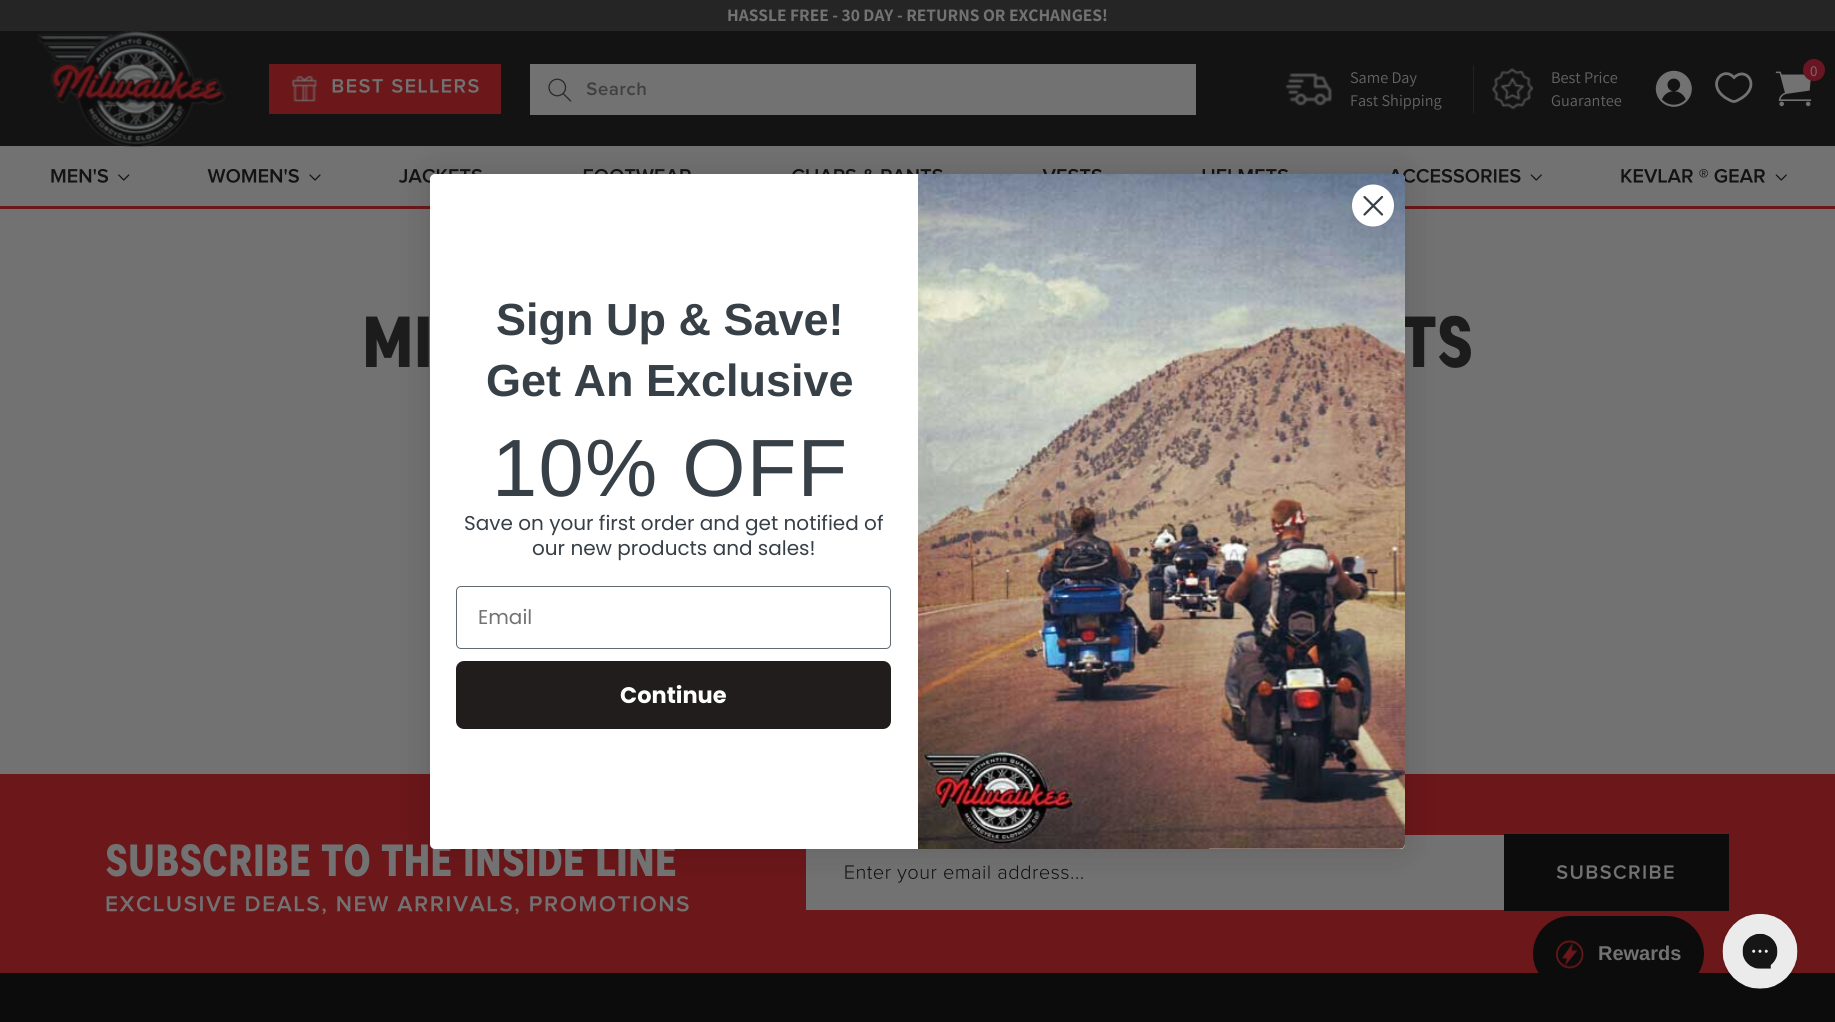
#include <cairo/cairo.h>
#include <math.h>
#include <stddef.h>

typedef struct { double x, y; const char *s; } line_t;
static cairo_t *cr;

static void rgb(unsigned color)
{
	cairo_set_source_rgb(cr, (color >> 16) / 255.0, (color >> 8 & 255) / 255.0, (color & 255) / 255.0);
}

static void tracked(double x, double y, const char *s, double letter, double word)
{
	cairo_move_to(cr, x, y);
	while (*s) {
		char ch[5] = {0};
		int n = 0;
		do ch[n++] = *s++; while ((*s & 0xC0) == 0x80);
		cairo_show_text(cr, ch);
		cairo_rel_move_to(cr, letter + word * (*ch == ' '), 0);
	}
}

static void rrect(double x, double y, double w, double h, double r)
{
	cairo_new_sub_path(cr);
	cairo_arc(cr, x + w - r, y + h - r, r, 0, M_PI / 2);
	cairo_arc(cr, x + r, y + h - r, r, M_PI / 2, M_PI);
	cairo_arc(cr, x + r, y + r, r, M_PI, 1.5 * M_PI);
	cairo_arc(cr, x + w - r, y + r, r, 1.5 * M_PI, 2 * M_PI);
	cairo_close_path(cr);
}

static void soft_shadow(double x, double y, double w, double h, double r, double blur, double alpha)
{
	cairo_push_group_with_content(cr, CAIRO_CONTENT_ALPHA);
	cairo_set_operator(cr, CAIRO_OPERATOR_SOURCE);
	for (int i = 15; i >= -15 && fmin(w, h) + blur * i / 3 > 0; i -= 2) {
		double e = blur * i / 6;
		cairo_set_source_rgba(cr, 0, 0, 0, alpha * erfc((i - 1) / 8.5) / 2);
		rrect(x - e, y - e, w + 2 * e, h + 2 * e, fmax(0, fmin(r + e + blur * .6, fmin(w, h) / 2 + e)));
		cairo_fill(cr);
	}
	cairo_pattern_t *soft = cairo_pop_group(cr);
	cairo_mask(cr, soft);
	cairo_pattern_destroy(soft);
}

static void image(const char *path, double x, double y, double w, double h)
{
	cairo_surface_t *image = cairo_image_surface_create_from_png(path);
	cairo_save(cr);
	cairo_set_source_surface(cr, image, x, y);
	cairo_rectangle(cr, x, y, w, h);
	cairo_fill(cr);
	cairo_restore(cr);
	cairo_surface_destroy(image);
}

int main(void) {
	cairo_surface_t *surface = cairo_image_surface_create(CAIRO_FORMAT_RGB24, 1835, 1022);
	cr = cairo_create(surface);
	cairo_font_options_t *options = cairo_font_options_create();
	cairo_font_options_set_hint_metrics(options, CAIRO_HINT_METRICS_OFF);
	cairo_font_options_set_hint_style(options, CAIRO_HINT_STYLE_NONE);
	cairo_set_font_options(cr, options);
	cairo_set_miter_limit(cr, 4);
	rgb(0x727272);
	cairo_paint(cr);
	rgb(0x252525);
	cairo_rectangle(cr, 0, 0, 1835, 31);
	cairo_fill(cr);
	rgb(0x141313);
	cairo_rectangle(cr, 0, 31, 1835, 115);
	cairo_fill(cr);
	image("img/1.png", 38, 31, 188, 116);
	rgb(0x6c171a);
	cairo_rectangle(cr, 269, 64, 232, 50);
	cairo_fill(cr);
	image("img/2.png", 291, 76, 26, 26);
	image("img/3.png", 332, 78, 147, 15);
	rgb(0x727272);
	cairo_rectangle(cr, 530, 64, 666, 51);
	cairo_fill(cr);
	image("img/4.png", 586, 82, 60, 14);
	image("img/5.png", 548, 78, 24, 24);
	rgb(0x222222);
	cairo_rectangle(cr, 1473, 65, 1, 48);
	cairo_fill(cr);
	image("img/6.png", 1285, 73, 47, 33);
	image("img/7.png", 1492, 68, 41, 42);
	image("img/8.png", 1655, 70, 37, 37);
	cairo_new_path(cr);
	cairo_move_to(cr, 1733, 76.5);
	cairo_line_to(cr, 1734, 77.5);
	cairo_curve_to(cr, 1746, 66, 1760.5, 85, 1742.5, 97.5);
	cairo_curve_to(cr, 1740.5, 98.5, 1736.5, 101.5, 1734, 101.5);
	cairo_curve_to(cr, 1731, 101.5, 1727, 98.5, 1725, 97.5);
	cairo_curve_to(cr, 1706.5, 84.5, 1722.5, 66.5, 1733, 76.5);
	cairo_close_path(cr);
	rgb(0x727272);
	cairo_set_line_width(cr, 2.8);
	cairo_stroke(cr);
	image("img/9.png", 1775, 71, 37, 36);
	rgb(0x691622);
	cairo_arc(cr, 1814, 70, 11, 0, 2 * M_PI);
	cairo_fill(cr);
	rgb(0x6c171a);
	cairo_rectangle(cr, 0, 206, 1835, 3);
	cairo_fill(cr);
	image("img/10.png", 51, 168, 58, 15);
	image("img/11.png", 118, 174, 12, 7);
	image("img/12.png", 207, 168, 92, 15);
	image("img/13.png", 309, 174, 12, 7);
	image("img/14.png", 399, 168, 83, 15);
	image("img/15.png", 583, 168, 108, 6);
	image("img/16.png", 792, 168, 151, 6);
	image("img/17.png", 1042, 168, 60, 6);
	image("img/18.png", 1202, 168, 86, 6);
	image("img/19.png", 1392, 168, 129, 15);
	image("img/20.png", 1530, 174, 12, 7);
	image("img/21.png", 1621, 168, 144, 15);
	image("img/20.png", 1775, 174, 12, 7);
	cairo_rectangle(cr, 0, 774, 1835, 199);
	cairo_fill(cr);
	image("img/23.png", 106, 896, 583, 19);
	rgb(0x727272);
	cairo_rectangle(cr, 806, 835, 698, 75);
	cairo_fill(cr);
	image("img/24.png", 845, 865, 238, 18);
	rgb(0x000000);
	soft_shadow(430, 174, 975, 675, 5, 19, 0.15);
	rgb(0x0c0c0c);
	cairo_rectangle(cr, 1504, 834, 225, 77);
	cairo_fill(cr);
	image("img/25.png", 1556, 865, 118, 14);
	cairo_rectangle(cr, 0, 973, 1835, 49);
	cairo_fill(cr);
	rrect(1533, 916, 171, 75, 37.5);
	cairo_fill(cr);
	image("img/26.png", 1556, 939, 28, 30);
	image("img/27.png", 1721, 913, 78, 76);
	cairo_select_font_face(cr, "Assistant", CAIRO_FONT_SLANT_NORMAL, CAIRO_FONT_WEIGHT_BOLD);
	cairo_set_font_size(cr, 17.5);
	rgb(0x727272);
	cairo_move_to(cr, 727, 21);
	cairo_show_text(cr, "HASSLE FREE - 30 DAY - RETURNS OR EXCHANGES!");
	cairo_select_font_face(cr, "Assistant", CAIRO_FONT_SLANT_NORMAL, CAIRO_FONT_WEIGHT_NORMAL);
	cairo_set_font_size(cr, 16.25);
	rgb(0x646464);
	{
		static const line_t items[] = {
			{1350, 83, "Same Day"},
			{1350, 106, "Fast Shipping"},
			{1551, 83, "Best Price"},
			{1551, 106, "Guarantee"},
		};
		for (size_t i = 0; i < sizeof items / sizeof *items; i++) {
			cairo_move_to(cr, items[i].x, items[i].y);
			cairo_show_text(cr, items[i].s);
		}
	}
	cairo_set_font_size(cr, 15);
	rgb(0x727272);
	cairo_move_to(cr, 1810, 76);
	cairo_show_text(cr, "0");
	cairo_select_font_face(cr, "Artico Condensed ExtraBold", CAIRO_FONT_SLANT_NORMAL, CAIRO_FONT_WEIGHT_NORMAL);
	cairo_set_font_size(cr, 72);
	rgb(0x1c1c1c);
	cairo_move_to(cr, 362, 367);
	cairo_show_text(cr, "MI");
	cairo_move_to(cr, 1401, 367);
	cairo_show_text(cr, "TS");
	cairo_set_font_size(cr, 45);
	rgb(0x727272);
	cairo_move_to(cr, 105, 876);
	cairo_show_text(cr, "SUBSCRIBE TO THE INSIDE LINE");
	rgb(0xffffff);
	rrect(430, 174, 975, 675, 5);
	cairo_fill(cr);
	image("img/22.png", 918, 174, 487, 675);
	cairo_arc(cr, 1373, 205.5, 21, 0, 2 * M_PI);
	cairo_fill(cr);
	cairo_new_path(cr);
	cairo_move_to(cr, 1364.5, 197);
	cairo_line_to(cr, 1382, 214.5);
	cairo_move_to(cr, 1364.5, 214.5);
	cairo_line_to(cr, 1382, 197);
	cairo_close_path(cr);
	rgb(0x373f47);
	cairo_set_line_width(cr, 2.2);
	cairo_set_line_cap(cr, CAIRO_LINE_CAP_ROUND);
	cairo_set_line_join(cr, CAIRO_LINE_JOIN_ROUND);
	cairo_stroke(cr);
	rgb(0x211d1c);
	rrect(456, 661, 435, 68, 8);
	cairo_fill(cr);
	cairo_select_font_face(cr, "Poppins", CAIRO_FONT_SLANT_NORMAL, CAIRO_FONT_WEIGHT_BOLD);
	cairo_set_font_size(cr, 22.5);
	rgb(0xffffff);
	cairo_move_to(cr, 620, 703);
	cairo_show_text(cr, "Continue");
	rrect(456.5, 586.5, 434, 62, 4.5);
	rgb(0x606a72);
	cairo_set_line_width(cr, 1);
	cairo_set_line_cap(cr, CAIRO_LINE_CAP_BUTT);
	cairo_set_line_join(cr, CAIRO_LINE_JOIN_MITER);
	cairo_stroke(cr);
	cairo_select_font_face(cr, "Poppins", CAIRO_FONT_SLANT_NORMAL, CAIRO_FONT_WEIGHT_NORMAL);
	cairo_set_font_size(cr, 20);
	rgb(0x727272);
	cairo_move_to(cr, 478, 624);
	cairo_show_text(cr, "Email");
	rgb(0x373f47);
	cairo_move_to(cr, 532, 555);
	cairo_show_text(cr, "our new products and sales!");
	cairo_move_to(cr, 464, 530);
	cairo_show_text(cr, "Save on your first order and get notified of");
	cairo_select_font_face(cr, "Liberation Sans", CAIRO_FONT_SLANT_NORMAL, CAIRO_FONT_WEIGHT_NORMAL);
	cairo_set_font_size(cr, 81.25);
	tracked(492, 496, "10% OFF", 1.25, 0);
	cairo_select_font_face(cr, "Liberation Sans", CAIRO_FONT_SLANT_NORMAL, CAIRO_FONT_WEIGHT_BOLD);
	cairo_set_font_size(cr, 45);
	cairo_move_to(cr, 486, 396);
	cairo_show_text(cr, "Get An Exclusive");
	cairo_move_to(cr, 496, 335);
	cairo_show_text(cr, "Sign Up & Save!");
	cairo_set_font_size(cr, 20);
	rgb(0x727272);
	cairo_move_to(cr, 1598, 960);
	cairo_show_text(cr, "Rewards");
	cairo_surface_write_to_png(surface, "page.png");
	cairo_font_options_destroy(options);
	cairo_destroy(cr);
	cairo_surface_destroy(surface);
	return 0;
}
